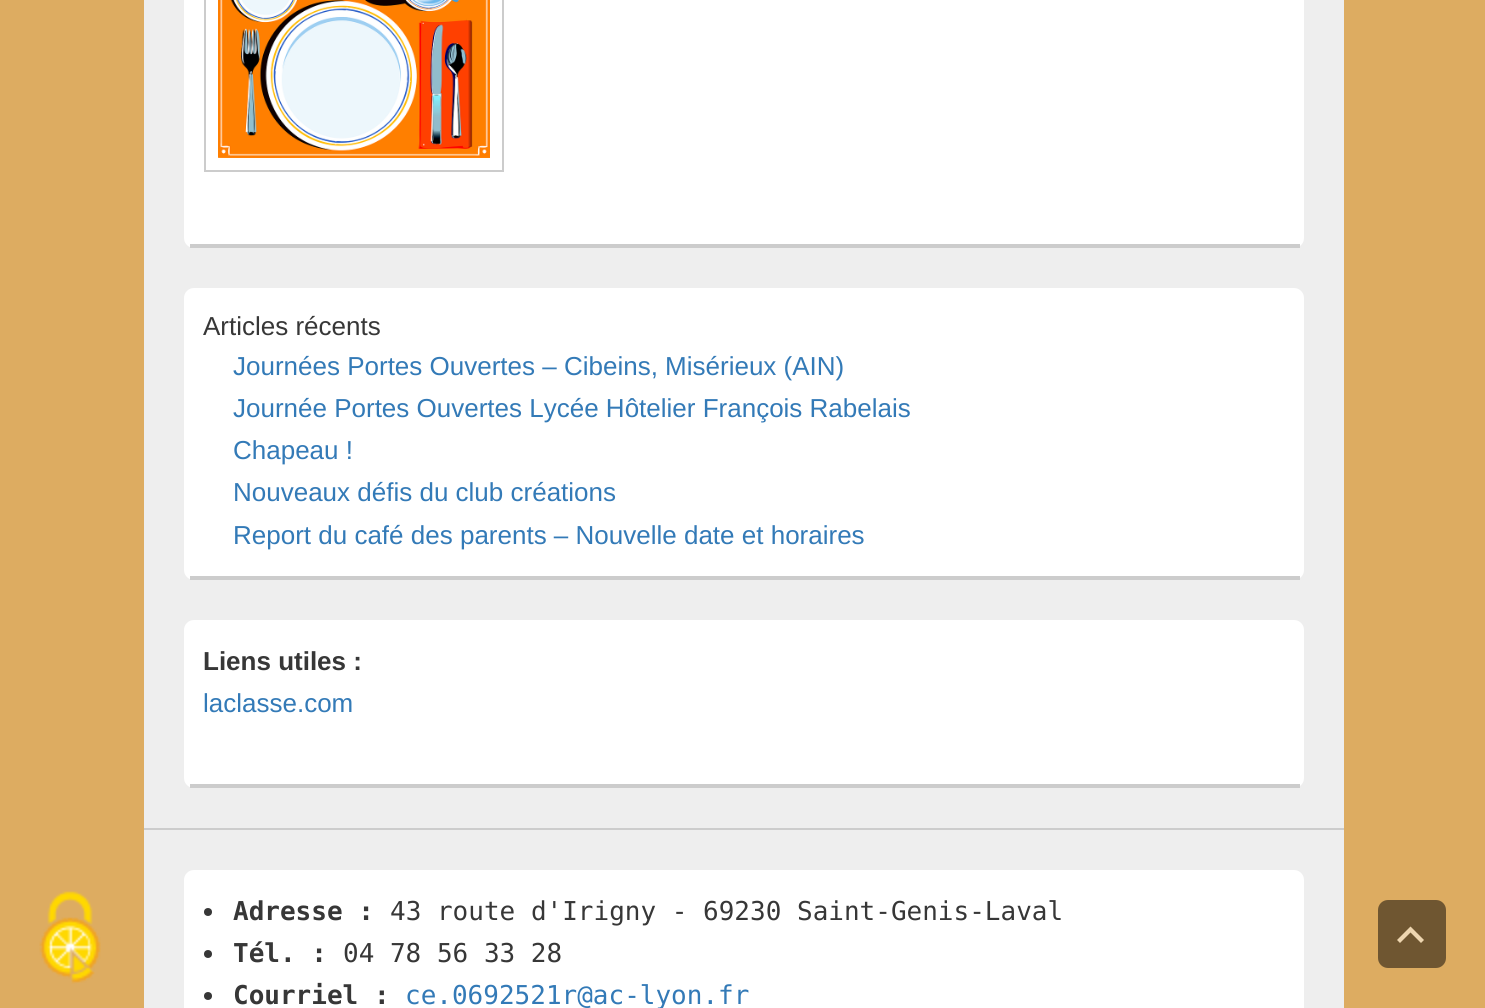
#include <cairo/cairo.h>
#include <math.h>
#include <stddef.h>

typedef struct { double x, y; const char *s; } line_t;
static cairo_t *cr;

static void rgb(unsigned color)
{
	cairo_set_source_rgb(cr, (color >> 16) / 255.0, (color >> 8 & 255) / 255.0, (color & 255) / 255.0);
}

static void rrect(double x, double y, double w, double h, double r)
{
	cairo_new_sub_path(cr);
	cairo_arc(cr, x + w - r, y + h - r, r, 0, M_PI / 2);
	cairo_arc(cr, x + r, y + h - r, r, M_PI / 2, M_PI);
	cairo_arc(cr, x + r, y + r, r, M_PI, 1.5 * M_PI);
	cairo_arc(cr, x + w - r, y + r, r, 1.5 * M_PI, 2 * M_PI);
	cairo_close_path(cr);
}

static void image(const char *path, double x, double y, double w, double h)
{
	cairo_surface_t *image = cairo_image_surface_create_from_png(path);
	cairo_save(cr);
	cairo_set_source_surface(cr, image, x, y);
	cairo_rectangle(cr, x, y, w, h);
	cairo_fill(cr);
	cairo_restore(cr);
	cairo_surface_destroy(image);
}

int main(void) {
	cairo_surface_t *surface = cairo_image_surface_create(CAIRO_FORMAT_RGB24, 1485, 1008);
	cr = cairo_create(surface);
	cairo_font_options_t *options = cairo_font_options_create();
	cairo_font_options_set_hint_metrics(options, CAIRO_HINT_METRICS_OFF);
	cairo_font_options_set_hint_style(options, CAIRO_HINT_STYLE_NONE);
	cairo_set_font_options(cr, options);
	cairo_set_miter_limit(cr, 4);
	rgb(0xddac61);
	cairo_paint(cr);
	image("img/1.png", 39, 891, 62, 93);
	rgb(0xeeeeee);
	cairo_rectangle(cr, 144, 0, 1200, 1008);
	cairo_fill(cr);
	rgb(0xffffff);
	rrect(184, -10, 1120, 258, 10);
	cairo_fill(cr);
	rgb(0xcccccc);
	cairo_rectangle(cr, 190, 244, 1110, 4);
	cairo_fill(cr);
	cairo_rectangle(cr, 205, -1, 298, 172);
	cairo_stroke(cr);
	image("img/2.png", 218, 0, 272, 158);
	rgb(0xffffff);
	rrect(184, 288, 1120, 292, 10);
	cairo_fill(cr);
	rgb(0xcccccc);
	cairo_rectangle(cr, 190, 576, 1110, 4);
	cairo_fill(cr);
	rgb(0xffffff);
	rrect(184, 620, 1120, 168, 10);
	cairo_fill(cr);
	rgb(0xcccccc);
	cairo_rectangle(cr, 190, 784, 1110, 4);
	cairo_fill(cr);
	cairo_rectangle(cr, 144, 828, 1200, 2);
	cairo_fill(cr);
	rgb(0xffffff);
	rrect(184, 870, 1120, 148, 10);
	cairo_fill(cr);
	rgb(0x373737);
	cairo_arc(cr, 208, 912, 4, 0, 2 * M_PI);
	cairo_fill(cr);
	cairo_arc(cr, 208, 954, 4, 0, 2 * M_PI);
	cairo_fill(cr);
	cairo_arc(cr, 208, 996, 4, 0, 2 * M_PI);
	cairo_fill(cr);
	rgb(0x6f5631);
	rrect(1378, 900, 68, 68, 10);
	cairo_fill(cr);
	rgb(0xeed6b0);
	cairo_new_path(cr);
	cairo_move_to(cr, 1421, 943);
	cairo_line_to(cr, 1410.5, 932.5);
	cairo_line_to(cr, 1400, 943);
	cairo_line_to(cr, 1397, 940);
	cairo_line_to(cr, 1410.5, 926.5);
	cairo_line_to(cr, 1424, 940);
	cairo_close_path(cr);
	cairo_fill(cr);
	cairo_select_font_face(cr, "Liberation Sans", CAIRO_FONT_SLANT_NORMAL, CAIRO_FONT_WEIGHT_NORMAL);
	cairo_set_font_size(cr, 26);
	rgb(0x373737);
	cairo_move_to(cr, 203, 335);
	cairo_show_text(cr, "Articles récents");
	rgb(0x337ab7);
	{
		static const line_t items[] = {
			{233, 375, "Journées Portes Ouvertes – Cibeins, Misérieux (AIN)"},
			{233, 417, "Journée Portes Ouvertes Lycée Hôtelier François Rabelais"},
			{233, 459, "Chapeau !"},
			{233, 501, "Nouveaux défis du club créations"},
			{233, 544, "Report du café des parents – Nouvelle date et horaires"},
		};
		for (size_t i = 0; i < sizeof items / sizeof *items; i++) {
			cairo_move_to(cr, items[i].x, items[i].y);
			cairo_show_text(cr, items[i].s);
		}
	}
	cairo_select_font_face(cr, "Liberation Sans", CAIRO_FONT_SLANT_NORMAL, CAIRO_FONT_WEIGHT_BOLD);
	rgb(0x373737);
	cairo_move_to(cr, 203, 670);
	cairo_show_text(cr, "Liens utiles :");
	cairo_select_font_face(cr, "Liberation Sans", CAIRO_FONT_SLANT_NORMAL, CAIRO_FONT_WEIGHT_NORMAL);
	rgb(0x337ab7);
	cairo_move_to(cr, 203, 712);
	cairo_show_text(cr, "laclasse.com");
	cairo_select_font_face(cr, "DejaVu Sans Mono", CAIRO_FONT_SLANT_NORMAL, CAIRO_FONT_WEIGHT_BOLD);
	rgb(0x373737);
	cairo_move_to(cr, 233, 920);
	cairo_show_text(cr, "Adresse :");
	cairo_select_font_face(cr, "DejaVu Sans Mono", CAIRO_FONT_SLANT_NORMAL, CAIRO_FONT_WEIGHT_NORMAL);
	cairo_move_to(cr, 390, 920);
	cairo_show_text(cr, "43 route d'Irigny - 69230 Saint-Genis-Laval");
	cairo_select_font_face(cr, "DejaVu Sans Mono", CAIRO_FONT_SLANT_NORMAL, CAIRO_FONT_WEIGHT_BOLD);
	cairo_move_to(cr, 233, 962);
	cairo_show_text(cr, "Tél. :");
	cairo_select_font_face(cr, "DejaVu Sans Mono", CAIRO_FONT_SLANT_NORMAL, CAIRO_FONT_WEIGHT_NORMAL);
	cairo_move_to(cr, 343, 962);
	cairo_show_text(cr, "04 78 56 33 28");
	cairo_select_font_face(cr, "DejaVu Sans Mono", CAIRO_FONT_SLANT_NORMAL, CAIRO_FONT_WEIGHT_BOLD);
	cairo_move_to(cr, 233, 1004);
	cairo_show_text(cr, "Courriel :");
	cairo_select_font_face(cr, "DejaVu Sans Mono", CAIRO_FONT_SLANT_NORMAL, CAIRO_FONT_WEIGHT_NORMAL);
	rgb(0x337ab7);
	cairo_move_to(cr, 405, 1004);
	cairo_show_text(cr, "ce.0692521r@ac-lyon.fr");
	cairo_surface_write_to_png(surface, "page.png");
	cairo_font_options_destroy(options);
	cairo_destroy(cr);
	cairo_surface_destroy(surface);
	return 0;
}
